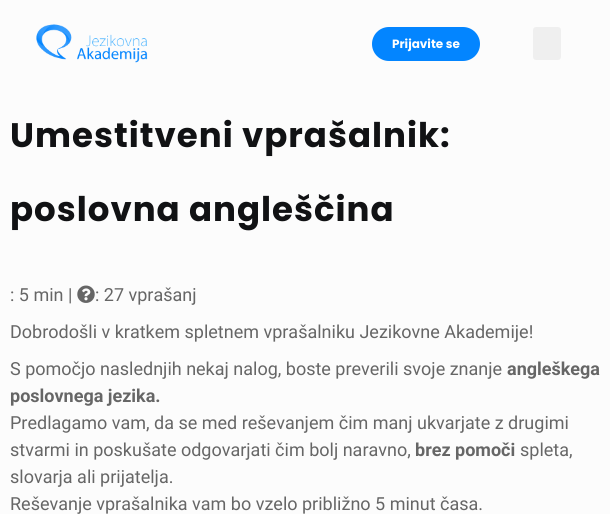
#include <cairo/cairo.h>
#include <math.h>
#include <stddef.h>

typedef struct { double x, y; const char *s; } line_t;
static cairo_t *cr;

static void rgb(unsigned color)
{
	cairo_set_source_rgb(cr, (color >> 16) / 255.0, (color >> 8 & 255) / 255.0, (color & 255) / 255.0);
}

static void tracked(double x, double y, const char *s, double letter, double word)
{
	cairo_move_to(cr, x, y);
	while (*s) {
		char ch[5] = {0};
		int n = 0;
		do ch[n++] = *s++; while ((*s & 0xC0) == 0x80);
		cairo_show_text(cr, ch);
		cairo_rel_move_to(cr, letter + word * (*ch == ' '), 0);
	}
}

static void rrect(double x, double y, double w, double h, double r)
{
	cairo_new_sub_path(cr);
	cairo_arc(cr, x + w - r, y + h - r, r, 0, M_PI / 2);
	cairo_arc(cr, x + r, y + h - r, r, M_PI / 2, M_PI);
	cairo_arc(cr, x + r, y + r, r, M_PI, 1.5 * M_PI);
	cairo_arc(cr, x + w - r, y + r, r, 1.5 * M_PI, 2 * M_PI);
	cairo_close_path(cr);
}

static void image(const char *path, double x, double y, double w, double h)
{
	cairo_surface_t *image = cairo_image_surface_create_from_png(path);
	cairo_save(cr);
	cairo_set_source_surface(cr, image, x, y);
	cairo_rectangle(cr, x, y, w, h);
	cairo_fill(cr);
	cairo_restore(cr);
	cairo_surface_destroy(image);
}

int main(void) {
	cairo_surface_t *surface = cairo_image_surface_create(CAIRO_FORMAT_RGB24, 610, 514);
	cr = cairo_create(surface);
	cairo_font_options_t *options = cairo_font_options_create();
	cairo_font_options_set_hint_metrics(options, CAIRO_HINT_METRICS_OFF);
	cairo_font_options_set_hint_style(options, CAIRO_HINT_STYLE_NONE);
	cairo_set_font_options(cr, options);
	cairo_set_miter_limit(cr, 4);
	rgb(0xfcfcfc);
	cairo_paint(cr);
	image("img/1.png", 36, 24, 112, 39);
	rgb(0x0385ff);
	rrect(372, 27, 108, 34, 17);
	cairo_fill(cr);
	rgb(0xefefef);
	rrect(533, 27, 28, 33, 3);
	cairo_fill(cr);
	image("img/2.png", 77, 285, 18, 18);
	cairo_select_font_face(cr, "Poppins", CAIRO_FONT_SLANT_NORMAL, CAIRO_FONT_WEIGHT_BOLD);
	cairo_set_font_size(cr, 12);
	rgb(0xffffff);
	cairo_move_to(cr, 392, 48);
	cairo_show_text(cr, "Prijavite se");
	cairo_set_font_size(cr, 34);
	rgb(0x111214);
	tracked(10, 147, "Umestitveni vprašalnik:", 1, 0);
	tracked(10, 221, "poslovna angleščina", 1, 0);
	cairo_select_font_face(cr, "Roboto", CAIRO_FONT_SLANT_NORMAL, CAIRO_FONT_WEIGHT_NORMAL);
	cairo_set_font_size(cr, 18);
	rgb(0x666666);
	{
		static const line_t items[] = {
			{10, 301, ": 5 min |"},
			{95, 301, ": 27 vprašanj"},
			{10, 338, "Dobrodošli v kratkem spletnem vprašalniku Jezikovne Akademije!"},
			{10, 375, "S pomočjo naslednjih nekaj nalog, boste preverili svoje znanje"},
		};
		for (size_t i = 0; i < sizeof items / sizeof *items; i++) {
			cairo_move_to(cr, items[i].x, items[i].y);
			cairo_show_text(cr, items[i].s);
		}
	}
	cairo_select_font_face(cr, "Roboto", CAIRO_FONT_SLANT_NORMAL, CAIRO_FONT_WEIGHT_BOLD);
	cairo_move_to(cr, 507, 375);
	cairo_show_text(cr, "angleškega");
	cairo_move_to(cr, 10, 402);
	cairo_show_text(cr, "poslovnega jezika.");
	cairo_select_font_face(cr, "Roboto", CAIRO_FONT_SLANT_NORMAL, CAIRO_FONT_WEIGHT_NORMAL);
	cairo_move_to(cr, 10, 429);
	cairo_show_text(cr, "Predlagamo vam, da se med reševanjem čim manj ukvarjate z drugimi");
	cairo_move_to(cr, 10, 456);
	cairo_show_text(cr, "stvarmi in poskušate odgovarjati čim bolj naravno,");
	cairo_select_font_face(cr, "Roboto", CAIRO_FONT_SLANT_NORMAL, CAIRO_FONT_WEIGHT_BOLD);
	cairo_move_to(cr, 415, 456);
	cairo_show_text(cr, "brez pomoči");
	cairo_select_font_face(cr, "Roboto", CAIRO_FONT_SLANT_NORMAL, CAIRO_FONT_WEIGHT_NORMAL);
	{
		static const line_t items[] = {
			{520, 456, "spleta,"},
			{10, 483, "slovarja ali prijatelja."},
			{10, 510, "Reševanje vprašalnika vam bo vzelo približno 5 minut časa."},
		};
		for (size_t i = 0; i < sizeof items / sizeof *items; i++) {
			cairo_move_to(cr, items[i].x, items[i].y);
			cairo_show_text(cr, items[i].s);
		}
	}
	cairo_surface_write_to_png(surface, "page.png");
	cairo_font_options_destroy(options);
	cairo_destroy(cr);
	cairo_surface_destroy(surface);
	return 0;
}
